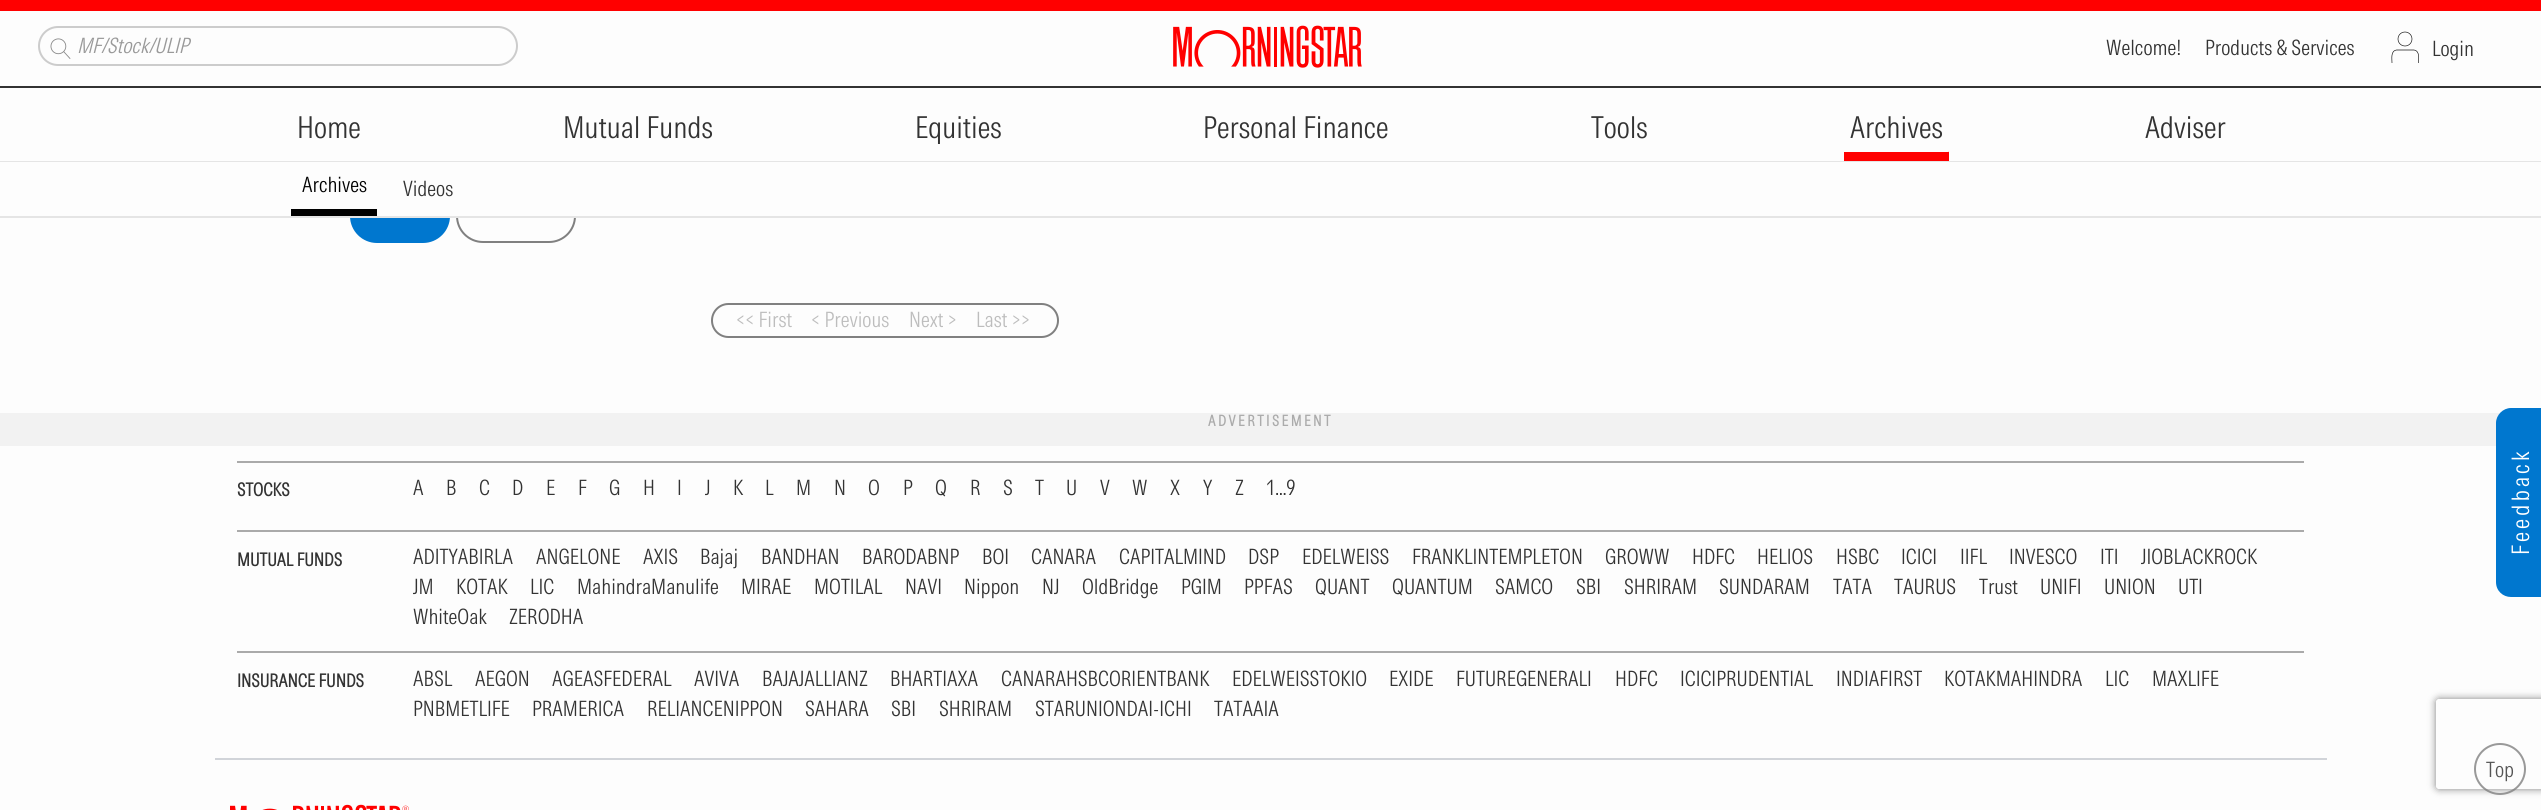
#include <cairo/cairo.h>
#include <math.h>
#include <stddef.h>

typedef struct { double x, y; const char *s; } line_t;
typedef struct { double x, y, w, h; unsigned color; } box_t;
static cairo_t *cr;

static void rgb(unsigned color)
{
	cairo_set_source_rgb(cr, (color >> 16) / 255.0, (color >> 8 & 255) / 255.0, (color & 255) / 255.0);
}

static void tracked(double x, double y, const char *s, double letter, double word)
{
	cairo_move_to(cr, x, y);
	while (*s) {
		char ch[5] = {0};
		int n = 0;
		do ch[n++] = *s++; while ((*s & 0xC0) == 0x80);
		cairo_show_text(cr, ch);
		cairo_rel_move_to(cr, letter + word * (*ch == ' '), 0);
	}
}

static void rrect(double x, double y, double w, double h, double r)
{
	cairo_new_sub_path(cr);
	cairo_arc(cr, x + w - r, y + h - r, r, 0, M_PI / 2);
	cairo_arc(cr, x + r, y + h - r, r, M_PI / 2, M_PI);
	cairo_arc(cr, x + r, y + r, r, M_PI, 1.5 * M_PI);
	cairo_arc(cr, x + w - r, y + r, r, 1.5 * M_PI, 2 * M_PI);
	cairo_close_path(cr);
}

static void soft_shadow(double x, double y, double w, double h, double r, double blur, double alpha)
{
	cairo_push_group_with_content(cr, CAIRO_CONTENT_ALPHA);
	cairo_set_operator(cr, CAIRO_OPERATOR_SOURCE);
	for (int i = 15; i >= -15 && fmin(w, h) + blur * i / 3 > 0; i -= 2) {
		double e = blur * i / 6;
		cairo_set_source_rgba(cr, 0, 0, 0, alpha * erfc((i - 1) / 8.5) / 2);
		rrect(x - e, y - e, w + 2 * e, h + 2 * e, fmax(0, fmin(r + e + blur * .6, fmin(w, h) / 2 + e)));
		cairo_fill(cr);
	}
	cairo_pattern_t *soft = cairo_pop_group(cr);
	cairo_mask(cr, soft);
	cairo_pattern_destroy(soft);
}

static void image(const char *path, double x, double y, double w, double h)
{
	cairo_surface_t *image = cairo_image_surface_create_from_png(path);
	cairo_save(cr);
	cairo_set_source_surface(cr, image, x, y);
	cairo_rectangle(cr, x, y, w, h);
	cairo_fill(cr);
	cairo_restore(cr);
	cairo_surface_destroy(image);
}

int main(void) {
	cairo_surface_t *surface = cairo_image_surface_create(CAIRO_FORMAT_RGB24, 2541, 810);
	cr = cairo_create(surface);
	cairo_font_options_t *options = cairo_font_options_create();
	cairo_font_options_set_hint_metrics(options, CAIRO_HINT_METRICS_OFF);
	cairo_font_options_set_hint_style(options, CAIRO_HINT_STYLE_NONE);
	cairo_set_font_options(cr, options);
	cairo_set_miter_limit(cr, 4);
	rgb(0xfdfdfd);
	cairo_paint(cr);
	rgb(0xff0000);
	cairo_rectangle(cr, 0, 0, 2541, 11);
	cairo_fill(cr);
	rgb(0x333333);
	cairo_rectangle(cr, 0, 86, 2541, 2);
	cairo_fill(cr);
	rrect(39, 27, 478, 38, 19);
	rgb(0xcccccc);
	cairo_stroke(cr);
	image("img/1.png", 50, 38, 21, 21);
	image("img/2.png", 1173, 25, 189, 43);
	cairo_arc(cr, 2405, 39, 7, 0, 2 * M_PI);
	rgb(0x000000);
	cairo_set_line_width(cr, 0.6);
	cairo_stroke(cr);
	cairo_new_path(cr);
	cairo_move_to(cr, 2418.5, 63);
	cairo_curve_to(cr, 2418.5, 58.5, 2420, 51, 2414, 50);
	cairo_line_to(cr, 2396.5, 50);
	cairo_curve_to(cr, 2390.5, 51, 2392, 58.5, 2392, 63);
	cairo_stroke(cr);
	rgb(0xe5e5e5);
	cairo_rectangle(cr, 0, 161, 2541, 1);
	cairo_fill(cr);
	cairo_save(cr);
	cairo_rectangle(cr, 1844, 87, 105, 74);
	cairo_clip(cr);
	rgb(0xff0000);
	cairo_set_fill_rule(cr, CAIRO_FILL_RULE_EVEN_ODD);
	cairo_new_path(cr);
	cairo_move_to(cr, 1695, -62);
	cairo_line_to(cr, 2097, -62);
	cairo_line_to(cr, 2097, 309);
	cairo_line_to(cr, 1695, 309);
	cairo_close_path(cr);
	cairo_move_to(cr, 1844, 75);
	cairo_line_to(cr, 1948, 75);
	cairo_curve_to(cr, 1949, 75, 1950, 76, 1950, 76);
	cairo_line_to(cr, 1950, 150);
	cairo_curve_to(cr, 1950, 151, 1949, 152, 1948, 152);
	cairo_line_to(cr, 1844, 152);
	cairo_curve_to(cr, 1843, 152, 1842, 151, 1842, 150);
	cairo_line_to(cr, 1842, 76);
	cairo_curve_to(cr, 1842, 76, 1843, 75, 1844, 75);
	cairo_close_path(cr);
	cairo_fill(cr);
	cairo_restore(cr);
	rgb(0x0077cf);
	rrect(351, 190, 98, 52, 26);
	cairo_fill_preserve(cr);
	cairo_set_line_width(cr, 2);
	cairo_stroke(cr);
	rrect(457, 190, 118, 52, 26);
	rgb(0x808080);
	cairo_stroke(cr);
	{
		static const box_t items[] = {
			{350, 189, 226, 27, 0xfdfdfd},
			{0, 216, 2541, 2, 0xe5e5e5},
			{291, 209, 86, 7, 0x000000},
		};
		for (size_t i = 0; i < sizeof items / sizeof *items; i++) {
			rgb(items[i].color);
			cairo_rectangle(cr, items[i].x, items[i].y, items[i].w, items[i].h);
			cairo_fill(cr);
		}
	}
	rrect(712, 304, 346, 33, 16.5);
	rgb(0x808080);
	cairo_stroke(cr);
	{
		static const box_t items[] = {
			{0, 413, 2500, 33, 0xf2f2f2},
			{237, 461, 2067, 2, 0xaaaaaa},
			{237, 530, 2067, 2, 0xaaaaaa},
			{237, 651, 2067, 2, 0xaaaaaa},
			{215, 758, 2112, 2, 0xd1d4d9},
		};
		for (size_t i = 0; i < sizeof items / sizeof *items; i++) {
			rgb(items[i].color);
			cairo_rectangle(cr, items[i].x, items[i].y, items[i].w, items[i].h);
			cairo_fill(cr);
		}
	}
	image("img/3.png", 230, 804, 179, 6);
	rgb(0x0077cf);
	cairo_new_path(cr);
	cairo_move_to(cr, 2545, 597);
	cairo_line_to(cr, 2511, 597);
	cairo_curve_to(cr, 2503, 597, 2496, 591, 2496, 582);
	cairo_line_to(cr, 2496, 423);
	cairo_curve_to(cr, 2496, 415, 2503, 408, 2511, 408);
	cairo_line_to(cr, 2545, 408);
	cairo_close_path(cr);
	cairo_fill(cr);
	cairo_arc(cr, 2500, 769, 25, 0, 2 * M_PI);
	rgb(0x999999);
	cairo_stroke(cr);
	cairo_save(cr);
	cairo_set_fill_rule(cr, CAIRO_FILL_RULE_EVEN_ODD);
	cairo_new_path(cr);
	cairo_move_to(cr, 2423, 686);
	cairo_line_to(cr, 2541, 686);
	cairo_line_to(cr, 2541, 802);
	cairo_line_to(cr, 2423, 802);
	cairo_close_path(cr);
	cairo_move_to(cr, 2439, 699);
	cairo_line_to(cr, 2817, 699);
	cairo_curve_to(cr, 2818.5, 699, 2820, 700.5, 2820, 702);
	cairo_line_to(cr, 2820, 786);
	cairo_curve_to(cr, 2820, 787.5, 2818.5, 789, 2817, 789);
	cairo_line_to(cr, 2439, 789);
	cairo_curve_to(cr, 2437.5, 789, 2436, 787.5, 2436, 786);
	cairo_line_to(cr, 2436, 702);
	cairo_curve_to(cr, 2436, 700.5, 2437.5, 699, 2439, 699);
	cairo_close_path(cr);
	cairo_clip(cr);
	rgb(0x808080);
	soft_shadow(2436, 699, 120, 90, 3, 4, 1);
	cairo_restore(cr);
	cairo_select_font_face(cr, "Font", CAIRO_FONT_SLANT_ITALIC, CAIRO_FONT_WEIGHT_NORMAL);
	cairo_set_font_size(cr, 21);
	cairo_move_to(cr, 77, 53);
	cairo_show_text(cr, "MF/Stock/ULIP");
	cairo_select_font_face(cr, "Font", CAIRO_FONT_SLANT_NORMAL, CAIRO_FONT_WEIGHT_NORMAL);
	rgb(0x333333);
	{
		static const line_t items[] = {
			{2106, 55, "Welcome!"},
			{2205, 55, "Products & Services"},
			{2432, 56, "Login"},
		};
		for (size_t i = 0; i < sizeof items / sizeof *items; i++) {
			cairo_move_to(cr, items[i].x, items[i].y);
			cairo_show_text(cr, items[i].s);
		}
	}
	cairo_set_font_size(cr, 30);
	{
		static const line_t items[] = {
			{297, 138, "Home"},
			{563, 138, "Mutual Funds"},
			{915, 138, "Equities"},
			{1203, 138, "Personal Finance"},
			{1591, 138, "Tools"},
			{1850, 138, "Archives"},
			{2145, 138, "Adviser"},
		};
		for (size_t i = 0; i < sizeof items / sizeof *items; i++) {
			cairo_move_to(cr, items[i].x, items[i].y);
			cairo_show_text(cr, items[i].s);
		}
	}
	cairo_set_font_size(cr, 21);
	rgb(0x000000);
	cairo_move_to(cr, 302, 192);
	cairo_show_text(cr, "Archives");
	rgb(0x333333);
	cairo_move_to(cr, 403, 196);
	cairo_show_text(cr, "Videos");
	rgb(0xbdbdbd);
	{
		static const line_t items[] = {
			{736, 327, "<< First"},
			{811, 327, "< Previous"},
			{909, 327, "Next >"},
			{976, 327, "Last >>"},
		};
		for (size_t i = 0; i < sizeof items / sizeof *items; i++) {
			cairo_move_to(cr, items[i].x, items[i].y);
			cairo_show_text(cr, items[i].s);
		}
	}
	cairo_select_font_face(cr, "Font", CAIRO_FONT_SLANT_NORMAL, CAIRO_FONT_WEIGHT_BOLD);
	cairo_set_font_size(cr, 15);
	rgb(0xababab);
	tracked(1208, 426, "ADVERTISEMENT", 2.5, 0);
	cairo_set_font_size(cr, 18);
	rgb(0x333333);
	cairo_move_to(cr, 237, 496);
	cairo_show_text(cr, "STOCKS");
	cairo_select_font_face(cr, "Font", CAIRO_FONT_SLANT_NORMAL, CAIRO_FONT_WEIGHT_NORMAL);
	cairo_set_font_size(cr, 21);
	{
		static const line_t items[] = {
			{413, 495, "A"},
			{446, 495, "B"},
			{479, 495, "C"},
			{512, 495, "D"},
			{546, 495, "E"},
			{578, 495, "F"},
			{609, 495, "G"},
			{643, 495, "H"},
			{677, 495, "I"},
			{705, 495, "J"},
			{733, 495, "K"},
			{765, 495, "L"},
			{796, 495, "M"},
			{834, 495, "N"},
			{868, 495, "O"},
			{903, 495, "P"},
			{935, 495, "Q"},
			{970, 495, "R"},
			{1003, 495, "S"},
			{1035, 495, "T"},
			{1066, 495, "U"},
			{1100, 495, "V"},
			{1132, 495, "W"},
			{1170, 495, "X"},
			{1203, 495, "Y"},
			{1235, 495, "Z"},
			{1266, 495, "1...9"},
		};
		for (size_t i = 0; i < sizeof items / sizeof *items; i++) {
			cairo_move_to(cr, items[i].x, items[i].y);
			cairo_show_text(cr, items[i].s);
		}
	}
	cairo_select_font_face(cr, "Font", CAIRO_FONT_SLANT_NORMAL, CAIRO_FONT_WEIGHT_BOLD);
	cairo_set_font_size(cr, 18);
	cairo_move_to(cr, 237, 566);
	cairo_show_text(cr, "MUTUAL FUNDS");
	cairo_select_font_face(cr, "Font", CAIRO_FONT_SLANT_NORMAL, CAIRO_FONT_WEIGHT_NORMAL);
	cairo_set_font_size(cr, 21);
	{
		static const line_t items[] = {
			{413, 564, "ADITYABIRLA"},
			{536, 564, "ANGELONE"},
			{643, 564, "AXIS"},
			{700, 564, "Bajaj"},
			{761, 564, "BANDHAN"},
			{862, 564, "BARODABNP"},
			{982, 564, "BOI"},
			{1031, 564, "CANARA"},
			{1119, 564, "CAPITALMIND"},
			{1248, 564, "DSP"},
			{1302, 564, "EDELWEISS"},
			{1412, 564, "FRANKLINTEMPLETON"},
			{1605, 564, "GROWW"},
			{1692, 564, "HDFC"},
			{1757, 564, "HELIOS"},
			{1836, 564, "HSBC"},
			{1901, 564, "ICICI"},
			{1960, 564, "IIFL"},
			{2009, 564, "INVESCO"},
			{2100, 564, "ITI"},
			{2141, 564, "JIOBLACKROCK"},
			{413, 594, "JM"},
			{456, 594, "KOTAK"},
			{530, 594, "LIC"},
			{577, 594, "MahindraManulife"},
			{741, 594, "MIRAE"},
			{814, 594, "MOTILAL"},
			{905, 594, "NAVI"},
			{964, 594, "Nippon"},
			{1042, 594, "NJ"},
			{1082, 594, "OldBridge"},
			{1181, 594, "PGIM"},
			{1244, 594, "PPFAS"},
			{1315, 594, "QUANT"},
			{1392, 594, "QUANTUM"},
			{1495, 594, "SAMCO"},
			{1576, 594, "SBI"},
			{1624, 594, "SHRIRAM"},
			{1719, 594, "SUNDARAM"},
			{1833, 594, "TATA"},
			{1894, 594, "TAURUS"},
			{1979, 594, "Trust"},
			{2040, 594, "UNIFI"},
			{2104, 594, "UNION"},
			{2178, 594, "UTI"},
			{413, 624, "WhiteOak"},
			{509, 624, "ZERODHA"},
		};
		for (size_t i = 0; i < sizeof items / sizeof *items; i++) {
			cairo_move_to(cr, items[i].x, items[i].y);
			cairo_show_text(cr, items[i].s);
		}
	}
	cairo_select_font_face(cr, "Font", CAIRO_FONT_SLANT_NORMAL, CAIRO_FONT_WEIGHT_BOLD);
	cairo_set_font_size(cr, 18);
	cairo_move_to(cr, 237, 687);
	cairo_show_text(cr, "INSURANCE FUNDS");
	cairo_select_font_face(cr, "Font", CAIRO_FONT_SLANT_NORMAL, CAIRO_FONT_WEIGHT_NORMAL);
	cairo_set_font_size(cr, 21);
	{
		static const line_t items[] = {
			{413, 686, "ABSL"},
			{475, 686, "AEGON"},
			{552, 686, "AGEASFEDERAL"},
			{694, 686, "AVIVA"},
			{762, 686, "BAJAJALLIANZ"},
			{890, 686, "BHARTIAXA"},
			{1001, 686, "CANARAHSBCORIENTBANK"},
			{1232, 686, "EDELWEISSTOKIO"},
			{1389, 686, "EXIDE"},
			{1456, 686, "FUTUREGENERALI"},
			{1615, 686, "HDFC"},
			{1680, 686, "ICICIPRUDENTIAL"},
			{1836, 686, "INDIAFIRST"},
			{1944, 686, "KOTAKMAHINDRA"},
			{2105, 686, "LIC"},
			{2152, 686, "MAXLIFE"},
			{413, 716, "PNBMETLIFE"},
			{532, 716, "PRAMERICA"},
			{647, 716, "RELIANCENIPPON"},
			{805, 716, "SAHARA"},
			{891, 716, "SBI"},
			{939, 716, "SHRIRAM"},
			{1035, 716, "STARUNIONDAI-ICHI"},
			{1214, 716, "TATAAIA"},
		};
		for (size_t i = 0; i < sizeof items / sizeof *items; i++) {
			cairo_move_to(cr, items[i].x, items[i].y);
			cairo_show_text(cr, items[i].s);
		}
	}
	cairo_set_font_size(cr, 24);
	rgb(0xffffff);
	cairo_save(cr);
	cairo_translate(cr, 2529, 555);
	cairo_rotate(cr, -90 * M_PI / 180);
	tracked(0, 0, "Feedback", 3, 0);
	cairo_restore(cr);
	cairo_set_font_size(cr, 21);
	rgb(0x555555);
	cairo_move_to(cr, 2486, 777);
	cairo_show_text(cr, "Top");
	cairo_surface_write_to_png(surface, "page.png");
	cairo_font_options_destroy(options);
	cairo_destroy(cr);
	cairo_surface_destroy(surface);
	return 0;
}
